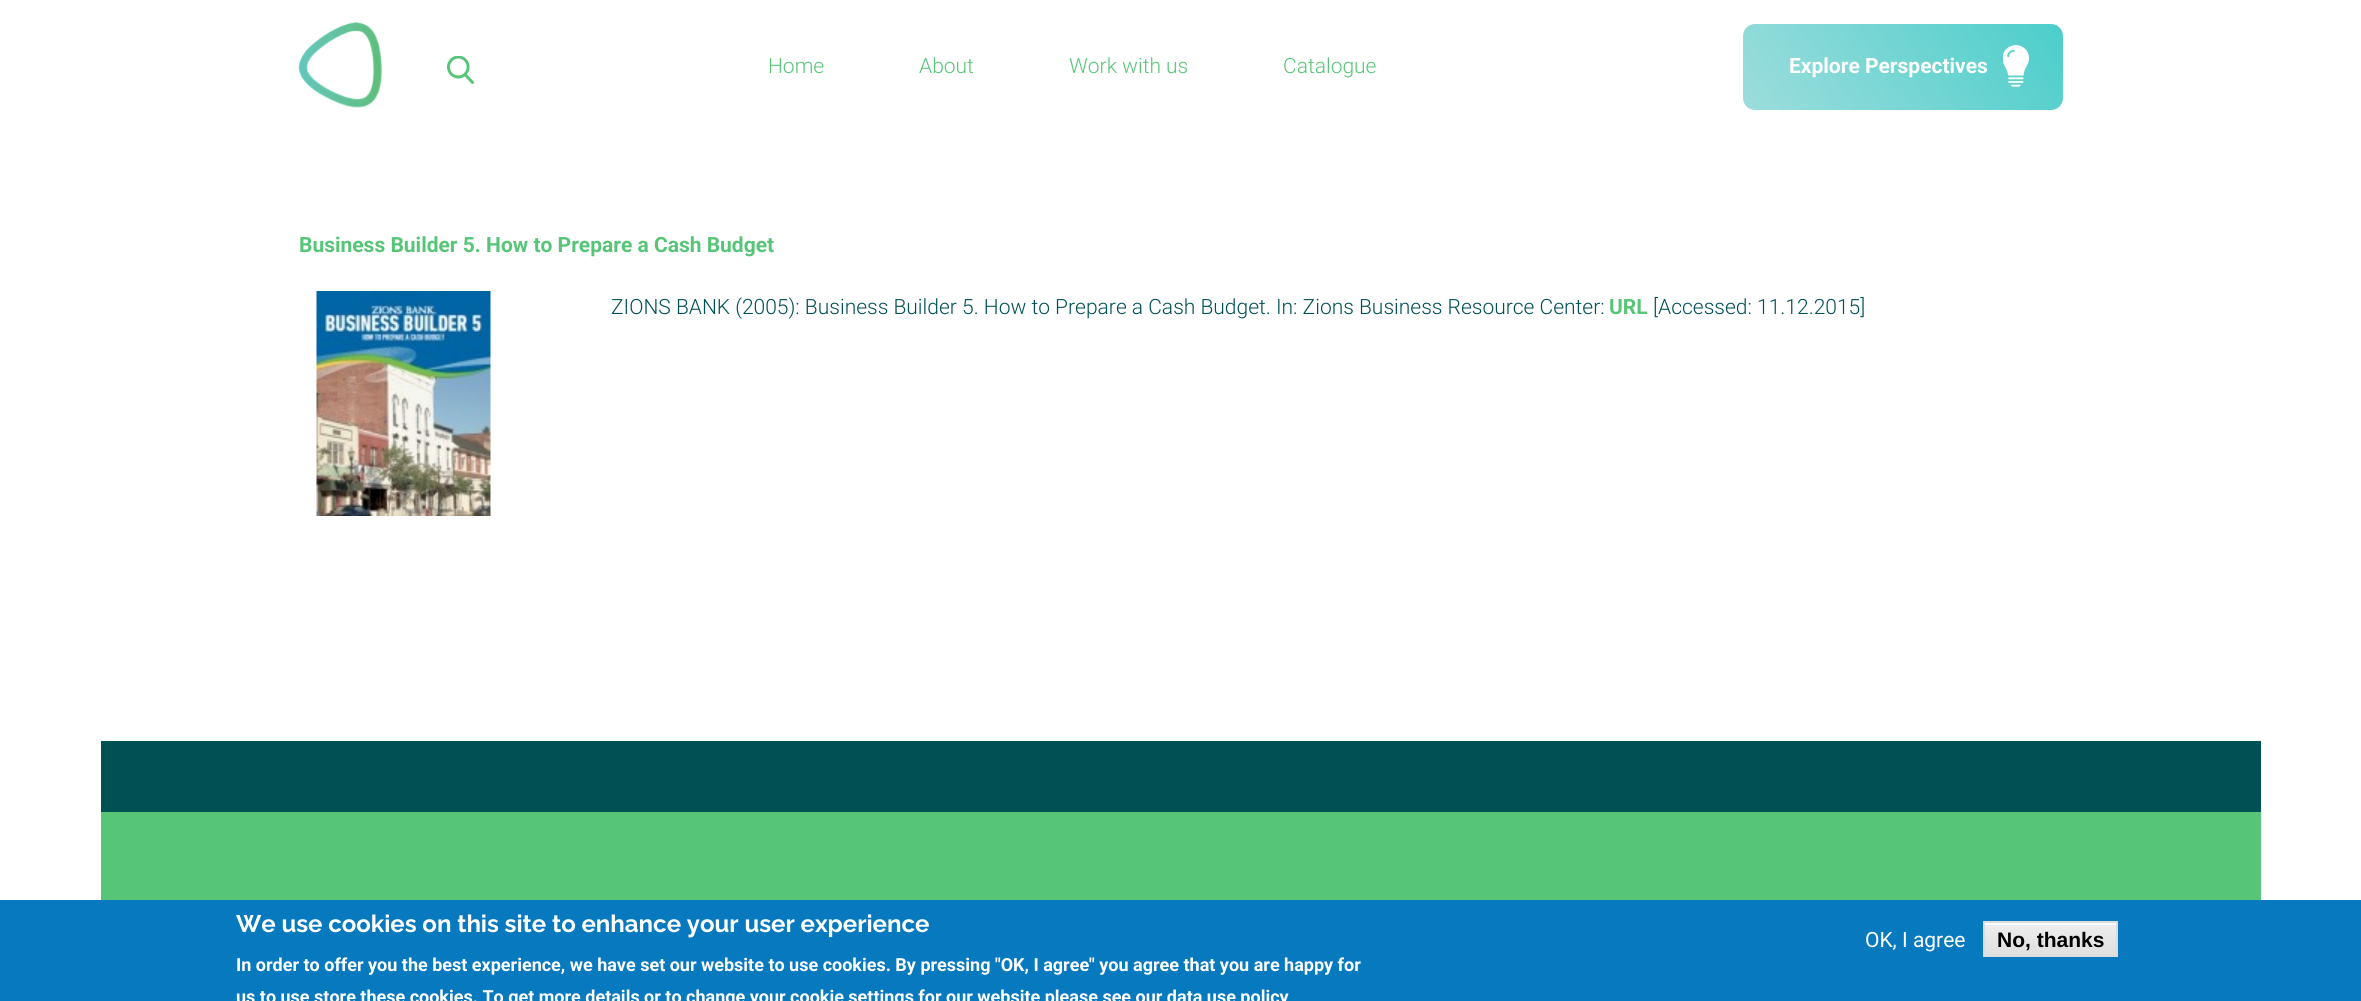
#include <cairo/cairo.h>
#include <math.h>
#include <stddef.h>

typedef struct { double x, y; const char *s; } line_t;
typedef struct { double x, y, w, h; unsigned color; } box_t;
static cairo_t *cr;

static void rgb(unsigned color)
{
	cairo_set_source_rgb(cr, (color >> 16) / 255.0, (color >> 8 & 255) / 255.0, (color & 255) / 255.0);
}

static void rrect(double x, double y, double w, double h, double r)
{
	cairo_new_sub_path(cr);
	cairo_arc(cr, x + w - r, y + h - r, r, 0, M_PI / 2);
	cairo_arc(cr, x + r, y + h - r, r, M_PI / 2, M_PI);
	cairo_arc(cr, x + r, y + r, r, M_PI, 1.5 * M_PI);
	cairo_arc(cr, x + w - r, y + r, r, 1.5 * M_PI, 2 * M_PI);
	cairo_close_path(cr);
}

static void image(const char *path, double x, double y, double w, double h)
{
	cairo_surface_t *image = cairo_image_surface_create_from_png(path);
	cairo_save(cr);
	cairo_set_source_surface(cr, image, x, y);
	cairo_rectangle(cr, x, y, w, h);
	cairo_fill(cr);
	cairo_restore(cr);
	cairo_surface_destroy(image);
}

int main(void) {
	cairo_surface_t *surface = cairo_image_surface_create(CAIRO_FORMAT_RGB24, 2361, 1001);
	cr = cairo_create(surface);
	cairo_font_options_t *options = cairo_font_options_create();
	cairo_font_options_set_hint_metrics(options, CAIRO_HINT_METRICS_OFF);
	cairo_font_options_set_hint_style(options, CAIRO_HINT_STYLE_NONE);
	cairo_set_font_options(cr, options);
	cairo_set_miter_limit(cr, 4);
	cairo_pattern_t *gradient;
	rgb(0xffffff);
	cairo_paint(cr);
	image("img/1.png", 298, 22, 84, 86);
	image("img/2.png", 447, 56, 27, 28);
	gradient = cairo_pattern_create_linear(2030, -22, 1775, 156);
	cairo_pattern_add_color_stop_rgba(gradient, 0, 0.298, 0.808, 0.796, 1);
	cairo_pattern_add_color_stop_rgba(gradient, 1, 0.612, 0.867, 0.863, 1);
	cairo_set_source(cr, gradient);
	cairo_pattern_destroy(gradient);
	rrect(1743, 24, 320, 86, 12);
	cairo_fill(cr);
	image("img/3.png", 2003, 45, 27, 42);
	image("img/4.png", 316, 291, 175, 225);
	{
		static const box_t items[] = {
			{101, 741, 2160, 71, 0x005154},
			{101, 812, 2160, 88, 0x57c578},
			{0, 900, 2361, 101, 0x0779bf},
		};
		for (size_t i = 0; i < sizeof items / sizeof *items; i++) {
			rgb(items[i].color);
			cairo_rectangle(cr, items[i].x, items[i].y, items[i].w, items[i].h);
			cairo_fill(cr);
		}
	}
	gradient = cairo_pattern_create_linear(2051, 923, 2051, 956);
	cairo_pattern_add_color_stop_rgba(gradient, 0.05, 0.929, 0.929, 0.929, 1);
	cairo_pattern_add_color_stop_rgba(gradient, 1, 0.875, 0.875, 0.875, 1);
	cairo_set_source(cr, gradient);
	cairo_pattern_destroy(gradient);
	cairo_rectangle(cr, 1985, 925, 131, 30);
	cairo_fill(cr);
	rgb(0xffffff);
	cairo_rectangle(cr, 1985, 923, 132, 2);
	cairo_fill(cr);
	cairo_rectangle(cr, 1984, 922, 133, 34);
	rgb(0xdcdcdc);
	cairo_stroke(cr);
	cairo_select_font_face(cr, "Roboto Light", CAIRO_FONT_SLANT_NORMAL, CAIRO_FONT_WEIGHT_NORMAL);
	cairo_set_font_size(cr, 21);
	rgb(0x57c578);
	{
		static const line_t items[] = {
			{768, 73, "Home"},
			{919, 73, "About"},
			{1069, 73, "Work with us"},
			{1283, 73, "Catalogue"},
		};
		for (size_t i = 0; i < sizeof items / sizeof *items; i++) {
			cairo_move_to(cr, items[i].x, items[i].y);
			cairo_show_text(cr, items[i].s);
		}
	}
	cairo_select_font_face(cr, "Roboto", CAIRO_FONT_SLANT_NORMAL, CAIRO_FONT_WEIGHT_BOLD);
	rgb(0xffffff);
	cairo_move_to(cr, 1789, 73);
	cairo_show_text(cr, "Explore Perspectives");
	rgb(0x57c578);
	cairo_move_to(cr, 299, 252);
	cairo_show_text(cr, "Business Builder 5. How to Prepare a Cash Budget");
	cairo_select_font_face(cr, "Roboto Light", CAIRO_FONT_SLANT_NORMAL, CAIRO_FONT_WEIGHT_NORMAL);
	rgb(0x005154);
	cairo_move_to(cr, 611, 314);
	cairo_show_text(cr, "ZIONS BANK (2005): Business Builder 5. How to Prepare a Cash Budget. In: Zions Business Resource Center:");
	cairo_select_font_face(cr, "Roboto", CAIRO_FONT_SLANT_NORMAL, CAIRO_FONT_WEIGHT_BOLD);
	rgb(0x57c578);
	cairo_move_to(cr, 1609, 314);
	cairo_show_text(cr, "URL");
	cairo_select_font_face(cr, "Roboto Light", CAIRO_FONT_SLANT_NORMAL, CAIRO_FONT_WEIGHT_NORMAL);
	rgb(0x005154);
	cairo_move_to(cr, 1653, 314);
	cairo_show_text(cr, "[Accessed: 11.12.2015]");
	cairo_select_font_face(cr, "Raleway", CAIRO_FONT_SLANT_NORMAL, CAIRO_FONT_WEIGHT_BOLD);
	cairo_set_font_size(cr, 24);
	rgb(0xffffff);
	cairo_move_to(cr, 236, 932);
	cairo_show_text(cr, "We use cookies on this site to enhance your user experience");
	cairo_select_font_face(cr, "Roboto", CAIRO_FONT_SLANT_NORMAL, CAIRO_FONT_WEIGHT_BOLD);
	cairo_set_font_size(cr, 18);
	cairo_move_to(cr, 236, 971);
	cairo_show_text(cr, "In order to offer you the best experience, we have set our website to use cookies. By pressing \"OK, I agree\" you agree that you are happy for");
	cairo_move_to(cr, 236, 1003);
	cairo_show_text(cr, "us to use store these cookies. To get more details or to change your cookie settings for our website please see our data use policy");
	cairo_select_font_face(cr, "Roboto", CAIRO_FONT_SLANT_NORMAL, CAIRO_FONT_WEIGHT_NORMAL);
	cairo_set_font_size(cr, 21);
	cairo_move_to(cr, 1865, 947);
	cairo_show_text(cr, "OK, I agree");
	cairo_select_font_face(cr, "Liberation Sans", CAIRO_FONT_SLANT_NORMAL, CAIRO_FONT_WEIGHT_BOLD);
	rgb(0x000000);
	cairo_move_to(cr, 1997, 947);
	cairo_show_text(cr, "No, thanks");
	cairo_surface_write_to_png(surface, "page.png");
	cairo_font_options_destroy(options);
	cairo_destroy(cr);
	cairo_surface_destroy(surface);
	return 0;
}
